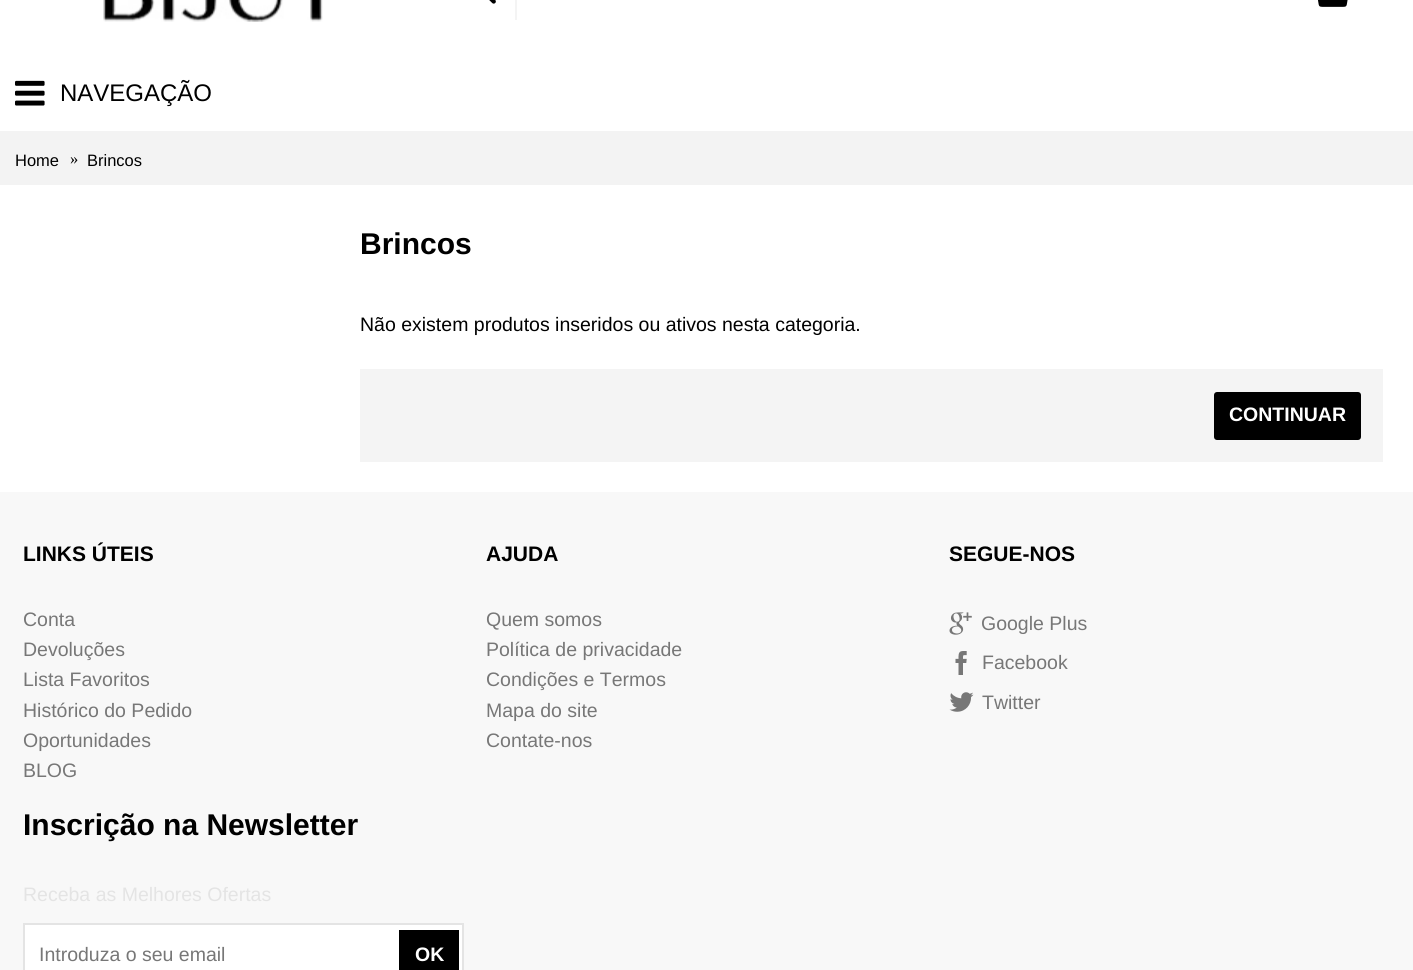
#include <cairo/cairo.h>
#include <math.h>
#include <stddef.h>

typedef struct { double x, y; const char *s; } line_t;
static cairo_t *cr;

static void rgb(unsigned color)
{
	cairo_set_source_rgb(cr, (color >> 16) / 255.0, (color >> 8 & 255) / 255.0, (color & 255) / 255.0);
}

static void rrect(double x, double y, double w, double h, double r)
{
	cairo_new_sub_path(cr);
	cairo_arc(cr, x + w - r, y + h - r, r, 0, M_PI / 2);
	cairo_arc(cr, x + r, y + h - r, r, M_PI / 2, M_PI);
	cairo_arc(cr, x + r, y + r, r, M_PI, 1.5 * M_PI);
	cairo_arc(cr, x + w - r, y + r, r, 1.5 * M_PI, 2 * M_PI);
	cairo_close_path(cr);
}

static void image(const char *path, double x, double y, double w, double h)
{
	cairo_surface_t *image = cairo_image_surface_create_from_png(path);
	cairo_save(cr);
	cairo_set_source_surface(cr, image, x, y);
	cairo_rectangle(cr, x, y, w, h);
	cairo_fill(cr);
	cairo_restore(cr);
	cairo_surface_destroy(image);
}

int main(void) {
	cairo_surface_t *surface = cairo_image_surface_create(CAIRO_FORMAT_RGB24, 1413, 970);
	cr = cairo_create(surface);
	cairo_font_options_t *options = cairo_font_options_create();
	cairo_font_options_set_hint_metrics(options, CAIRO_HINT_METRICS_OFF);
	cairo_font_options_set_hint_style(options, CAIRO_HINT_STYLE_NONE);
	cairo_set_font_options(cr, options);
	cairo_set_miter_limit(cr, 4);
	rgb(0xffffff);
	cairo_paint(cr);
	image("img/1.png", 103, 0, 220, 22);
	rgb(0xf4f4f4);
	cairo_rectangle(cr, 515, 0, 2, 20);
	cairo_fill(cr);
	image("img/2.png", 489, 0, 7, 4);
	image("img/3.png", 1318, 0, 30, 7);
	image("img/4.png", 15, 80, 30, 26);
	rgb(0xf3f3f3);
	cairo_rectangle(cr, 0, 131, 1413, 54);
	cairo_fill(cr);
	rgb(0xf4f4f4);
	cairo_rectangle(cr, 360, 369, 1023, 93);
	cairo_fill(cr);
	rgb(0x000000);
	rrect(1214, 392, 147, 48, 3);
	cairo_fill(cr);
	rgb(0xf8f8f8);
	cairo_rectangle(cr, 0, 492, 1413, 478);
	cairo_fill(cr);
	image("img/5.png", 949, 612, 23, 23);
	image("img/6.png", 955, 651, 12, 24);
	image("img/7.png", 949, 692, 25, 20);
	rgb(0xffffff);
	cairo_rectangle(cr, 24, 924, 439, 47);
	cairo_fill_preserve(cr);
	rgb(0xe4e4e4);
	cairo_stroke(cr);
	rgb(0x000000);
	cairo_rectangle(cr, 399, 930, 60, 40);
	cairo_fill(cr);
	cairo_select_font_face(cr, "Liberation Sans", CAIRO_FONT_SLANT_NORMAL, CAIRO_FONT_WEIGHT_NORMAL);
	cairo_set_font_size(cr, 24);
	cairo_move_to(cr, 60, 101);
	cairo_show_text(cr, "NAVEGAÇÃO");
	cairo_set_font_size(cr, 16.5);
	cairo_move_to(cr, 15, 166);
	cairo_show_text(cr, "Home");
	cairo_select_font_face(cr, "Liberation Serif", CAIRO_FONT_SLANT_NORMAL, CAIRO_FONT_WEIGHT_NORMAL);
	cairo_move_to(cr, 70, 164);
	cairo_show_text(cr, "»");
	cairo_select_font_face(cr, "Liberation Sans", CAIRO_FONT_SLANT_NORMAL, CAIRO_FONT_WEIGHT_NORMAL);
	cairo_move_to(cr, 87, 166);
	cairo_show_text(cr, "Brincos");
	cairo_select_font_face(cr, "Liberation Sans", CAIRO_FONT_SLANT_NORMAL, CAIRO_FONT_WEIGHT_BOLD);
	cairo_set_font_size(cr, 30);
	cairo_move_to(cr, 360, 254);
	cairo_show_text(cr, "Brincos");
	cairo_select_font_face(cr, "Liberation Sans", CAIRO_FONT_SLANT_NORMAL, CAIRO_FONT_WEIGHT_NORMAL);
	cairo_set_font_size(cr, 19.5);
	cairo_move_to(cr, 360, 331);
	cairo_show_text(cr, "Não existem produtos inseridos ou ativos nesta categoria.");
	cairo_select_font_face(cr, "Liberation Sans", CAIRO_FONT_SLANT_NORMAL, CAIRO_FONT_WEIGHT_BOLD);
	rgb(0xffffff);
	cairo_move_to(cr, 1229, 421);
	cairo_show_text(cr, "CONTINUAR");
	cairo_set_font_size(cr, 21);
	rgb(0x000000);
	cairo_move_to(cr, 23, 561);
	cairo_show_text(cr, "LINKS ÚTEIS");
	cairo_select_font_face(cr, "Liberation Sans", CAIRO_FONT_SLANT_NORMAL, CAIRO_FONT_WEIGHT_NORMAL);
	cairo_set_font_size(cr, 19.5);
	rgb(0x777777);
	{
		static const line_t items[] = {
			{23, 626, "Conta"},
			{23, 656, "Devoluções"},
			{23, 686, "Lista Favoritos"},
			{23, 717, "Histórico do Pedido"},
			{23, 747, "Oportunidades"},
			{23, 777, "BLOG"},
		};
		for (size_t i = 0; i < sizeof items / sizeof *items; i++) {
			cairo_move_to(cr, items[i].x, items[i].y);
			cairo_show_text(cr, items[i].s);
		}
	}
	cairo_select_font_face(cr, "Liberation Sans", CAIRO_FONT_SLANT_NORMAL, CAIRO_FONT_WEIGHT_BOLD);
	cairo_set_font_size(cr, 21);
	rgb(0x000000);
	cairo_move_to(cr, 486, 561);
	cairo_show_text(cr, "AJUDA");
	cairo_select_font_face(cr, "Liberation Sans", CAIRO_FONT_SLANT_NORMAL, CAIRO_FONT_WEIGHT_NORMAL);
	cairo_set_font_size(cr, 19.5);
	rgb(0x777777);
	{
		static const line_t items[] = {
			{486, 626, "Quem somos"},
			{486, 656, "Política de privacidade"},
			{486, 686, "Condições e Termos"},
			{486, 717, "Mapa do site"},
			{486, 747, "Contate-nos"},
		};
		for (size_t i = 0; i < sizeof items / sizeof *items; i++) {
			cairo_move_to(cr, items[i].x, items[i].y);
			cairo_show_text(cr, items[i].s);
		}
	}
	cairo_select_font_face(cr, "Liberation Sans", CAIRO_FONT_SLANT_NORMAL, CAIRO_FONT_WEIGHT_BOLD);
	cairo_set_font_size(cr, 21);
	rgb(0x000000);
	cairo_move_to(cr, 949, 561);
	cairo_show_text(cr, "SEGUE-NOS");
	cairo_select_font_face(cr, "Liberation Sans", CAIRO_FONT_SLANT_NORMAL, CAIRO_FONT_WEIGHT_NORMAL);
	cairo_set_font_size(cr, 19.5);
	rgb(0x777777);
	{
		static const line_t items[] = {
			{981, 630, "Google Plus"},
			{982, 669, "Facebook"},
			{982, 709, "Twitter"},
		};
		for (size_t i = 0; i < sizeof items / sizeof *items; i++) {
			cairo_move_to(cr, items[i].x, items[i].y);
			cairo_show_text(cr, items[i].s);
		}
	}
	cairo_select_font_face(cr, "Liberation Sans", CAIRO_FONT_SLANT_NORMAL, CAIRO_FONT_WEIGHT_BOLD);
	cairo_set_font_size(cr, 30);
	rgb(0x000000);
	cairo_move_to(cr, 23, 835);
	cairo_show_text(cr, "Inscrição na Newsletter");
	cairo_select_font_face(cr, "Liberation Sans", CAIRO_FONT_SLANT_NORMAL, CAIRO_FONT_WEIGHT_NORMAL);
	cairo_set_font_size(cr, 19.5);
	rgb(0xe4e4e4);
	cairo_move_to(cr, 23, 901);
	cairo_show_text(cr, "Receba as Melhores Ofertas");
	rgb(0x777777);
	cairo_move_to(cr, 39, 961);
	cairo_show_text(cr, "Introduza o seu email");
	cairo_select_font_face(cr, "Liberation Sans", CAIRO_FONT_SLANT_NORMAL, CAIRO_FONT_WEIGHT_BOLD);
	rgb(0xffffff);
	cairo_move_to(cr, 415, 961);
	cairo_show_text(cr, "OK");
	cairo_surface_write_to_png(surface, "page.png");
	cairo_font_options_destroy(options);
	cairo_destroy(cr);
	cairo_surface_destroy(surface);
	return 0;
}
